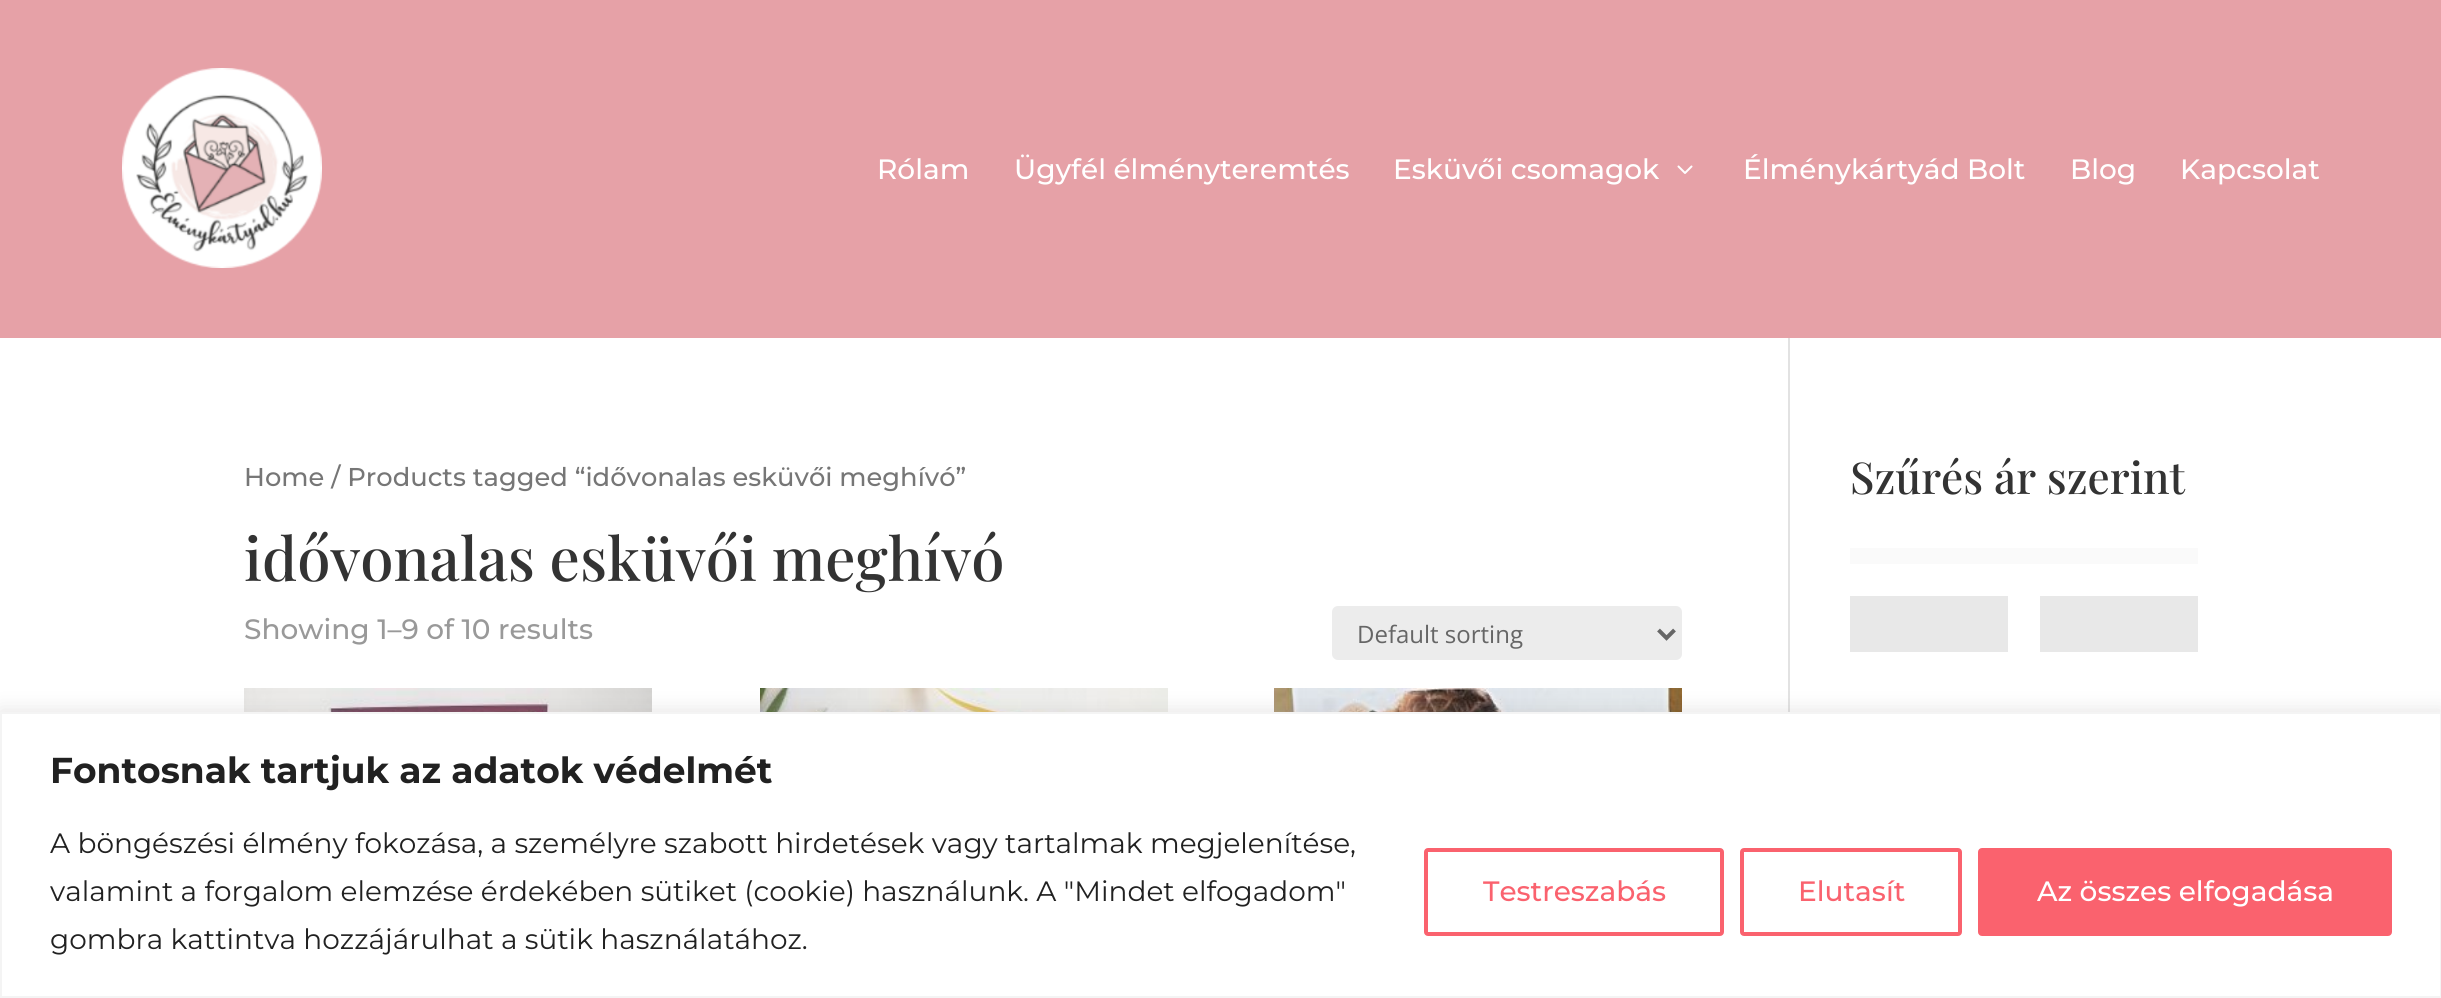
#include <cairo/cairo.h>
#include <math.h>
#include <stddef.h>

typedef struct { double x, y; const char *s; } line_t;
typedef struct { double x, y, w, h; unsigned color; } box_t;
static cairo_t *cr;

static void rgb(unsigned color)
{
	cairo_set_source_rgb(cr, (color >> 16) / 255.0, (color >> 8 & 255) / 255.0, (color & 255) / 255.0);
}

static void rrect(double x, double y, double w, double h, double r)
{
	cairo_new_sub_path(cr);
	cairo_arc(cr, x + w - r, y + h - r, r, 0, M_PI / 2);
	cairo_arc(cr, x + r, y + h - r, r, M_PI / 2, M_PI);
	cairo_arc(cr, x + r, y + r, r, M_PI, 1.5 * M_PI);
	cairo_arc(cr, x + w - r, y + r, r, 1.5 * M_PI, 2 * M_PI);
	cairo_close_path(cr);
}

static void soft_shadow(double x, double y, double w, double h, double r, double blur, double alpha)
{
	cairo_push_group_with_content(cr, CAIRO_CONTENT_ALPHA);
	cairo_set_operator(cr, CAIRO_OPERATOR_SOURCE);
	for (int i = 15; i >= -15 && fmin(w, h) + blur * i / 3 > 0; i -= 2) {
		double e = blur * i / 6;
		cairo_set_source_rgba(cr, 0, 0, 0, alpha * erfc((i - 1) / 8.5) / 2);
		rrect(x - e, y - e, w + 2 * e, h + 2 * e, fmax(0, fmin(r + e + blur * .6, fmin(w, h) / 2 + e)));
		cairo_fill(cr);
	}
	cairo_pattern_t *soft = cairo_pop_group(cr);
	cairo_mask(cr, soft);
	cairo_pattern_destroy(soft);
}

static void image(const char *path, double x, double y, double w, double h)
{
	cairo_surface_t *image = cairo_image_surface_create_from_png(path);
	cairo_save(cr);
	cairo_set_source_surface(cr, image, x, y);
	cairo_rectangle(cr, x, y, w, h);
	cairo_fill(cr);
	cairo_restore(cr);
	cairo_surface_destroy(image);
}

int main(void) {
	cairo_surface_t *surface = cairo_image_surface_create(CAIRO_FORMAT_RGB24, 2441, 998);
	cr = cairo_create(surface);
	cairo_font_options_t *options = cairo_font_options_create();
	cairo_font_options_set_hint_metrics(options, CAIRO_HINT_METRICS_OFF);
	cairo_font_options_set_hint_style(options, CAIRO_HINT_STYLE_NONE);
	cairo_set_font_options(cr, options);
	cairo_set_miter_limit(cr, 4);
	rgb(0xffffff);
	cairo_paint(cr);
	rgb(0xe6a1a7);
	cairo_rectangle(cr, 0, 0, 2441, 338);
	cairo_fill(cr);
	image("img/1.png", 122, 68, 200, 200);
	image("img/2.png", 1677, 165, 16, 9);
	rgb(0xe2e2e2);
	cairo_rectangle(cr, 1788, 338, 2, 374);
	cairo_fill(cr);
	rgb(0xececec);
	rrect(1332, 606, 350, 54, 6);
	cairo_fill(cr);
	cairo_new_path(cr);
	cairo_move_to(cr, 1658.5, 630);
	cairo_line_to(cr, 1666.5, 638);
	cairo_line_to(cr, 1674.5, 630);
	rgb(0x666666);
	cairo_set_line_width(cr, 4);
	cairo_stroke(cr);
	image("img/3.png", 244, 688, 408, 24);
	image("img/4.png", 760, 688, 408, 24);
	image("img/5.png", 1274, 688, 408, 24);
	{
		static const box_t items[] = {
			{1850, 548, 348, 16, 0xfafafa},
			{1850, 596, 158, 56, 0xe8e8e8},
			{2040, 596, 158, 56, 0xe8e8e8},
		};
		for (size_t i = 0; i < sizeof items / sizeof *items; i++) {
			rgb(items[i].color);
			cairo_rectangle(cr, items[i].x, items[i].y, items[i].w, items[i].h);
			cairo_fill(cr);
		}
	}
	rgb(0xacabab);
	soft_shadow(0, 710, 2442, 286, 0, 10, 0.3);
	rgb(0xffffff);
	cairo_rectangle(cr, 1, 713, 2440, 284);
	cairo_fill_preserve(cr);
	rgb(0xf4f4f4);
	cairo_set_line_width(cr, 2);
	cairo_stroke(cr);
	rrect(1426, 850, 296, 84, 2);
	rgb(0xfa626e);
	cairo_set_line_width(cr, 4);
	cairo_stroke(cr);
	rrect(1742, 850, 218, 84, 2);
	cairo_stroke(cr);
	rrect(1980, 850, 410, 84, 2);
	cairo_fill_preserve(cr);
	cairo_stroke(cr);
	cairo_select_font_face(cr, "Montserrat Thin", CAIRO_FONT_SLANT_NORMAL, CAIRO_FONT_WEIGHT_NORMAL);
	cairo_set_font_size(cr, 28);
	rgb(0xffffff);
	{
		static const line_t items[] = {
			{877, 179, "Rólam"},
			{1014, 179, "Ügyfél élményteremtés"},
			{1393, 179, "Esküvői csomagok"},
			{1743, 179, "Élménykártyád Bolt"},
			{2070, 179, "Blog"},
			{2180, 179, "Kapcsolat"},
		};
		for (size_t i = 0; i < sizeof items / sizeof *items; i++) {
			cairo_move_to(cr, items[i].x, items[i].y);
			cairo_show_text(cr, items[i].s);
		}
	}
	cairo_set_font_size(cr, 25.75);
	rgb(0x767676);
	cairo_move_to(cr, 244, 486);
	cairo_show_text(cr, "Home / Products tagged “idővonalas esküvői meghívó”");
	cairo_select_font_face(cr, "Playfair Display Medium", CAIRO_FONT_SLANT_NORMAL, CAIRO_FONT_WEIGHT_NORMAL);
	cairo_set_font_size(cr, 60);
	rgb(0x333333);
	cairo_move_to(cr, 244, 581);
	cairo_show_text(cr, "idővonalas esküvői meghívó");
	cairo_select_font_face(cr, "Montserrat Thin", CAIRO_FONT_SLANT_NORMAL, CAIRO_FONT_WEIGHT_NORMAL);
	cairo_set_font_size(cr, 28);
	rgb(0x999999);
	cairo_move_to(cr, 244, 639);
	cairo_show_text(cr, "Showing 1–9 of 10 results");
	cairo_select_font_face(cr, "Open Sans", CAIRO_FONT_SLANT_NORMAL, CAIRO_FONT_WEIGHT_NORMAL);
	cairo_set_font_size(cr, 24);
	rgb(0x666666);
	cairo_move_to(cr, 1357, 643);
	cairo_show_text(cr, "Default sorting");
	cairo_select_font_face(cr, "Playfair Display Medium", CAIRO_FONT_SLANT_NORMAL, CAIRO_FONT_WEIGHT_NORMAL);
	cairo_set_font_size(cr, 44);
	rgb(0x333333);
	cairo_move_to(cr, 1850, 494);
	cairo_show_text(cr, "Szűrés ár szerint");
	cairo_select_font_face(cr, "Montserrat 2 Thin", CAIRO_FONT_SLANT_NORMAL, CAIRO_FONT_WEIGHT_NORMAL);
	cairo_set_font_size(cr, 36);
	rgb(0x212121);
	cairo_move_to(cr, 50, 783);
	cairo_show_text(cr, "Fontosnak tartjuk az adatok védelmét");
	cairo_select_font_face(cr, "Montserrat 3 Thin", CAIRO_FONT_SLANT_NORMAL, CAIRO_FONT_WEIGHT_NORMAL);
	cairo_set_font_size(cr, 28);
	{
		static const line_t items[] = {
			{50, 853, "A böngészési élmény fokozása, a személyre szabott hirdetések vagy tartalmak megjelenítése,"},
			{50, 901, "valamint a forgalom elemzése érdekében sütiket (cookie) használunk. A \"Mindet elfogadom\""},
			{50, 949, "gombra kattintva hozzájárulhat a sütik használatához."},
		};
		for (size_t i = 0; i < sizeof items / sizeof *items; i++) {
			cairo_move_to(cr, items[i].x, items[i].y);
			cairo_show_text(cr, items[i].s);
		}
	}
	cairo_select_font_face(cr, "Montserrat Thin", CAIRO_FONT_SLANT_NORMAL, CAIRO_FONT_WEIGHT_NORMAL);
	rgb(0xfa626e);
	cairo_move_to(cr, 1483, 901);
	cairo_show_text(cr, "Testreszabás");
	cairo_move_to(cr, 1798, 901);
	cairo_show_text(cr, "Elutasít");
	rgb(0xffffff);
	cairo_move_to(cr, 2037, 901);
	cairo_show_text(cr, "Az összes elfogadása");
	cairo_surface_write_to_png(surface, "page.png");
	cairo_font_options_destroy(options);
	cairo_destroy(cr);
	cairo_surface_destroy(surface);
	return 0;
}
